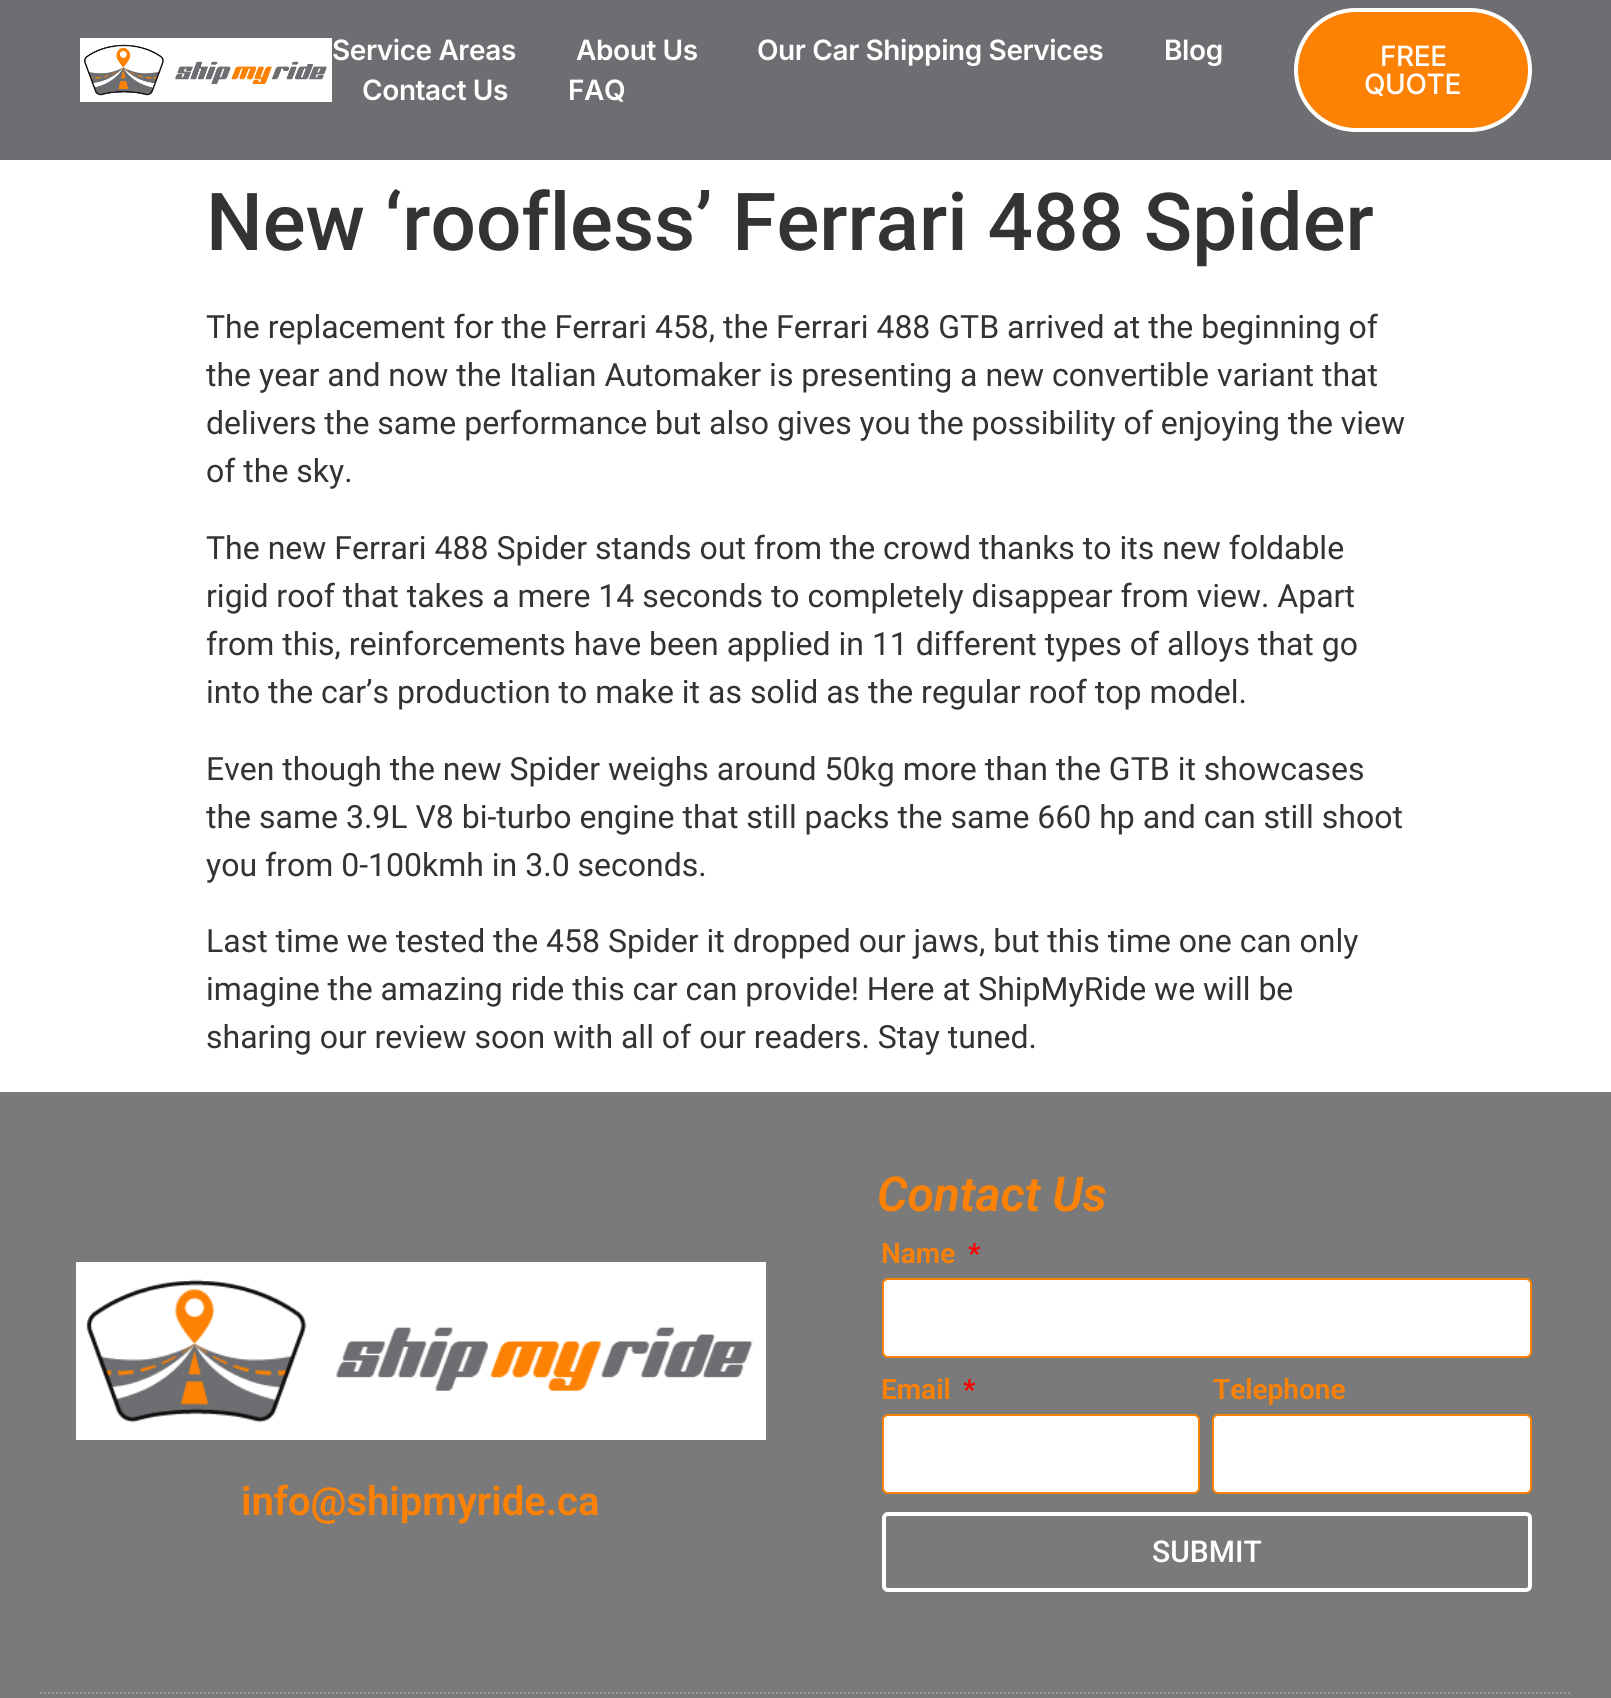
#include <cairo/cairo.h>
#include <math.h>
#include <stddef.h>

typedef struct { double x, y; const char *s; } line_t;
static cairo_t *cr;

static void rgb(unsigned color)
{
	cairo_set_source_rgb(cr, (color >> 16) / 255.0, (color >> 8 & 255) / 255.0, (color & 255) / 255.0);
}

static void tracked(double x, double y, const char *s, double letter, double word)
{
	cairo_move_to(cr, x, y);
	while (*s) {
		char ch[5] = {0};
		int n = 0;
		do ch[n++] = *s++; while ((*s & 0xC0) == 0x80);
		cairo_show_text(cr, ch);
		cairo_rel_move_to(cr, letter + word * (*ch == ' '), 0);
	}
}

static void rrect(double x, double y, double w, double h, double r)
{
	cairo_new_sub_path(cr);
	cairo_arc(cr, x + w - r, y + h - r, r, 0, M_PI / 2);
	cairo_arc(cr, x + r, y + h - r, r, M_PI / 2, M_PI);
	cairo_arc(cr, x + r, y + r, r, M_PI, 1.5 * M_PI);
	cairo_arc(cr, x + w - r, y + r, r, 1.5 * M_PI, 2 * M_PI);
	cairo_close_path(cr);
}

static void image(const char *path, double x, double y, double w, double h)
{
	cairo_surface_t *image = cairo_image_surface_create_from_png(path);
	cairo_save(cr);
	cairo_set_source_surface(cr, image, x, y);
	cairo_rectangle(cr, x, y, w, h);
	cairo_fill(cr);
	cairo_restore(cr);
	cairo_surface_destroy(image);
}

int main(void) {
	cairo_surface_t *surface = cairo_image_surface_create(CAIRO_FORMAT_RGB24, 1611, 1698);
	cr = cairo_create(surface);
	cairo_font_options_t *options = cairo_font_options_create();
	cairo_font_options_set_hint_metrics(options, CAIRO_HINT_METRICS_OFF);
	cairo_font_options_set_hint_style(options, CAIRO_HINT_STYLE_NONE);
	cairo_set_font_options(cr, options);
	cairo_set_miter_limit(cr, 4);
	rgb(0xffffff);
	cairo_paint(cr);
	rgb(0x6d6e71);
	cairo_rectangle(cr, 0, 0, 1611, 160);
	cairo_fill(cr);
	image("img/1.png", 80, 38, 252, 64);
	rgb(0xfd8104);
	rrect(1296, 10, 234, 120, 60);
	cairo_fill_preserve(cr);
	rgb(0xffffff);
	cairo_set_line_width(cr, 4);
	cairo_stroke(cr);
	rgb(0x7a7a7a);
	cairo_rectangle(cr, 0, 1092, 1611, 606);
	cairo_fill(cr);
	cairo_new_path(cr);
	cairo_move_to(cr, 40, 1693);
	cairo_line_to(cr, 1572, 1693);
	rgb(0x9b9b9b);
	cairo_set_line_width(cr, 2);
	cairo_set_dash(cr, (double[]){2, 2}, 2, 0);
	cairo_stroke(cr);
	image("img/2.png", 76, 1262, 690, 178);
	rgb(0xffffff);
	rrect(883, 1279, 648, 78, 5);
	cairo_fill_preserve(cr);
	rgb(0xfd8104);
	cairo_set_dash(cr, NULL, 0, 0);
	cairo_stroke(cr);
	rgb(0xffffff);
	rrect(883, 1415, 316, 78, 5);
	cairo_fill_preserve(cr);
	rgb(0xfd8104);
	cairo_stroke(cr);
	rgb(0xffffff);
	rrect(1213, 1415, 318, 78, 5);
	cairo_fill_preserve(cr);
	rgb(0xfd8104);
	cairo_stroke(cr);
	rrect(884, 1514, 646, 76, 4);
	rgb(0xffffff);
	cairo_set_line_width(cr, 4);
	cairo_stroke(cr);
	cairo_select_font_face(cr, "Inter SemiBold", CAIRO_FONT_SLANT_NORMAL, CAIRO_FONT_WEIGHT_NORMAL);
	cairo_set_font_size(cr, 28);
	{
		static const line_t items[] = {
			{332, 60, "Service Areas"},
			{576, 60, "About Us"},
			{757, 60, "Our Car Shipping Services"},
			{1164, 60, "Blog"},
			{362, 100, "Contact Us"},
			{568, 100, "FAQ"},
		};
		for (size_t i = 0; i < sizeof items / sizeof *items; i++) {
			tracked(items[i].x, items[i].y, items[i].s, -0.4, 0);
		}
	}
	cairo_select_font_face(cr, "Inter Medium", CAIRO_FONT_SLANT_NORMAL, CAIRO_FONT_WEIGHT_NORMAL);
	tracked(1380, 66, "FREE", -0.4, 0);
	tracked(1364, 94, "QUOTE", -0.4, 0);
	cairo_select_font_face(cr, "Roboto Medium", CAIRO_FONT_SLANT_NORMAL, CAIRO_FONT_WEIGHT_NORMAL);
	cairo_set_font_size(cr, 80);
	rgb(0x333333);
	cairo_move_to(cr, 206, 250);
	cairo_show_text(cr, "New ‘roofless’ Ferrari 488 Spider");
	cairo_select_font_face(cr, "Roboto", CAIRO_FONT_SLANT_NORMAL, CAIRO_FONT_WEIGHT_NORMAL);
	cairo_set_font_size(cr, 32);
	{
		static const line_t items[] = {
			{206, 338, "The replacement for the Ferrari 458, the Ferrari 488 GTB arrived at the beginning of"},
			{206, 386, "the year and now the Italian Automaker is presenting a new convertible variant that"},
			{206, 434, "delivers the same performance but also gives you the possibility of enjoying the view"},
			{206, 482, "of the sky."},
			{206, 559, "The new Ferrari 488 Spider stands out from the crowd thanks to its new foldable"},
			{206, 607, "rigid roof that takes a mere 14 seconds to completely disappear from view. Apart"},
			{206, 655, "from this, reinforcements have been applied in 11 different types of alloys that go"},
			{206, 703, "into the car’s production to make it as solid as the regular roof top model."},
			{206, 780, "Even though the new Spider weighs around 50kg more than the GTB it showcases"},
			{206, 828, "the same 3.9L V8 bi-turbo engine that still packs the same 660 hp and can still shoot"},
			{206, 876, "you from 0-100kmh in 3.0 seconds."},
			{206, 952, "Last time we tested the 458 Spider it dropped our jaws, but this time one can only"},
			{206, 1000, "imagine the amazing ride this car can provide! Here at ShipMyRide we will be"},
			{206, 1048, "sharing our review soon with all of our readers. Stay tuned."},
		};
		for (size_t i = 0; i < sizeof items / sizeof *items; i++) {
			cairo_move_to(cr, items[i].x, items[i].y);
			cairo_show_text(cr, items[i].s);
		}
	}
	cairo_select_font_face(cr, "Roboto SemiBold", CAIRO_FONT_SLANT_NORMAL, CAIRO_FONT_WEIGHT_NORMAL);
	cairo_set_font_size(cr, 40);
	rgb(0xfd8104);
	cairo_move_to(cr, 241, 1515);
	cairo_show_text(cr, "info@shipmyride.ca");
	cairo_select_font_face(cr, "Roboto SemiBold", CAIRO_FONT_SLANT_ITALIC, CAIRO_FONT_WEIGHT_NORMAL);
	cairo_set_font_size(cr, 48);
	cairo_move_to(cr, 877, 1211);
	cairo_show_text(cr, "Contact Us");
	cairo_select_font_face(cr, "Roboto SemiBold", CAIRO_FONT_SLANT_NORMAL, CAIRO_FONT_WEIGHT_NORMAL);
	cairo_set_font_size(cr, 28);
	cairo_move_to(cr, 881, 1263);
	cairo_show_text(cr, "Name");
	rgb(0xff0000);
	cairo_move_to(cr, 968, 1263);
	cairo_show_text(cr, "*");
	rgb(0xfd8104);
	cairo_move_to(cr, 881, 1399);
	cairo_show_text(cr, "Email");
	rgb(0xff0000);
	cairo_move_to(cr, 963, 1399);
	cairo_show_text(cr, "*");
	rgb(0xfd8104);
	cairo_move_to(cr, 1213, 1399);
	cairo_show_text(cr, "Telephone");
	cairo_select_font_face(cr, "Roboto Medium", CAIRO_FONT_SLANT_NORMAL, CAIRO_FONT_WEIGHT_NORMAL);
	cairo_set_font_size(cr, 30);
	rgb(0xffffff);
	cairo_move_to(cr, 1152, 1562);
	cairo_show_text(cr, "SUBMIT");
	cairo_surface_write_to_png(surface, "page.png");
	cairo_font_options_destroy(options);
	cairo_destroy(cr);
	cairo_surface_destroy(surface);
	return 0;
}
